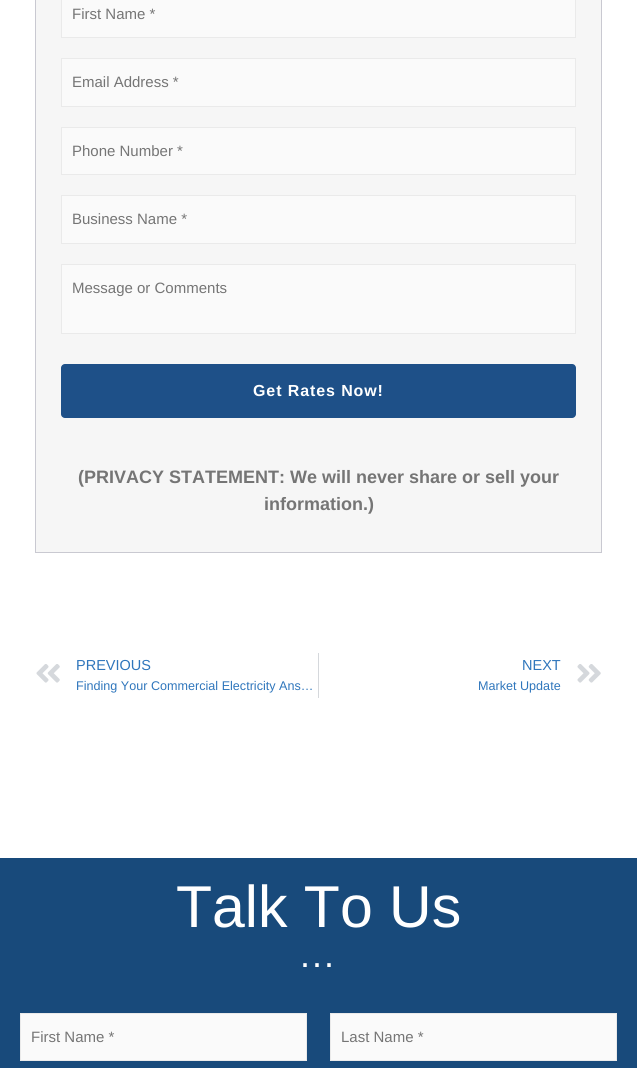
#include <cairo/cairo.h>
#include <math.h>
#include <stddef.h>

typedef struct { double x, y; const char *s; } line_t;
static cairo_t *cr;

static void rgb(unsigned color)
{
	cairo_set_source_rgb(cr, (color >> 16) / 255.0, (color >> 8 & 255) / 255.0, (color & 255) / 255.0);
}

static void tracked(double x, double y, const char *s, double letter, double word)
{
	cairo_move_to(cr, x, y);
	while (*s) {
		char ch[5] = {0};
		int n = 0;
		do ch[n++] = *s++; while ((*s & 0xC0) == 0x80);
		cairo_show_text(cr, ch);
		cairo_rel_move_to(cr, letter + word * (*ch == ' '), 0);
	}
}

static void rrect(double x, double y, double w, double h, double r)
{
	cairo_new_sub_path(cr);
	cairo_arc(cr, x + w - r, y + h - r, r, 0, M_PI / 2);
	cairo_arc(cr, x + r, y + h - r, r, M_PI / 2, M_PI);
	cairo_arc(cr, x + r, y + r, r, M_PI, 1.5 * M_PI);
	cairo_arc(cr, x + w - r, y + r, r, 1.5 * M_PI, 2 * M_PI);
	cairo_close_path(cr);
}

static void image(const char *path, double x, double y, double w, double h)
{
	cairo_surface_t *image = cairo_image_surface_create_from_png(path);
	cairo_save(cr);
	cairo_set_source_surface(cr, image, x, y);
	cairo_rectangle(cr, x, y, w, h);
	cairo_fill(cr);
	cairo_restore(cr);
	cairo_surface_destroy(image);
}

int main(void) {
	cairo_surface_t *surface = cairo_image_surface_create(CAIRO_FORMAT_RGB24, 637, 1068);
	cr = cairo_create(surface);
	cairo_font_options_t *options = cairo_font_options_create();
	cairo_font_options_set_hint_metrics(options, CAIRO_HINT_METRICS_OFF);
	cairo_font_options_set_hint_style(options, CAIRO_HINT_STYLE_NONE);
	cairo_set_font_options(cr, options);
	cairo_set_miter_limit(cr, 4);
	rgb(0xffffff);
	cairo_paint(cr);
	rgb(0xf6f6f6);
	cairo_rectangle(cr, 35.5, -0.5, 566, 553);
	cairo_fill_preserve(cr);
	rgb(0xc9c9d1);
	cairo_set_line_width(cr, 1);
	cairo_stroke(cr);
	rgb(0xfafafa);
	cairo_rectangle(cr, 61.5, -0.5, 514, 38);
	cairo_fill_preserve(cr);
	rgb(0xeaeaea);
	cairo_stroke(cr);
	rgb(0xfafafa);
	cairo_rectangle(cr, 61.5, 58.5, 514, 48);
	cairo_fill_preserve(cr);
	rgb(0xeaeaea);
	cairo_stroke(cr);
	rgb(0xfafafa);
	cairo_rectangle(cr, 61.5, 127.5, 514, 47);
	cairo_fill_preserve(cr);
	rgb(0xeaeaea);
	cairo_stroke(cr);
	rgb(0xfafafa);
	cairo_rectangle(cr, 61.5, 195.5, 514, 48);
	cairo_fill_preserve(cr);
	rgb(0xeaeaea);
	cairo_stroke(cr);
	rgb(0xfafafa);
	cairo_rectangle(cr, 61.5, 264.5, 514, 69);
	cairo_fill_preserve(cr);
	rgb(0xeaeaea);
	cairo_stroke(cr);
	rgb(0x1e5088);
	rrect(61, 364, 515, 54, 4);
	cairo_fill(cr);
	image("img/1.png", 36, 664, 24, 19);
	rgb(0xd5d8dc);
	cairo_rectangle(cr, 318, 653, 1, 45);
	cairo_fill(cr);
	image("img/2.png", 577, 664, 24, 19);
	rgb(0x184a7b);
	cairo_rectangle(cr, 0, 858, 637, 210);
	cairo_fill(cr);
	rgb(0xfafafa);
	cairo_rectangle(cr, 20.5, 1013.5, 286, 47);
	cairo_fill_preserve(cr);
	rgb(0xeaeaea);
	cairo_stroke(cr);
	rgb(0xfafafa);
	cairo_rectangle(cr, 330.5, 1013.5, 286, 47);
	cairo_fill_preserve(cr);
	rgb(0xeaeaea);
	cairo_stroke(cr);
	cairo_select_font_face(cr, "Liberation Sans", CAIRO_FONT_SLANT_NORMAL, CAIRO_FONT_WEIGHT_NORMAL);
	cairo_set_font_size(cr, 15);
	rgb(0x757575);
	{
		static const line_t items[] = {
			{72, 19, "First Name *"},
			{72, 87, "Email Address *"},
			{72, 156, "Phone Number *"},
			{72, 224, "Business Name *"},
			{72, 293, "Message or Comments"},
		};
		for (size_t i = 0; i < sizeof items / sizeof *items; i++) {
			cairo_move_to(cr, items[i].x, items[i].y);
			cairo_show_text(cr, items[i].s);
		}
	}
	cairo_select_font_face(cr, "Liberation Sans", CAIRO_FONT_SLANT_NORMAL, CAIRO_FONT_WEIGHT_BOLD);
	cairo_set_font_size(cr, 16);
	rgb(0xffffff);
	tracked(253, 396, "Get Rates Now!", 0.9, 0);
	cairo_set_font_size(cr, 18);
	rgb(0x757575);
	cairo_move_to(cr, 78, 483);
	cairo_show_text(cr, "(PRIVACY STATEMENT: We will never share or sell your");
	cairo_move_to(cr, 264, 510);
	cairo_show_text(cr, "information.)");
	cairo_select_font_face(cr, "Liberation Sans", CAIRO_FONT_SLANT_NORMAL, CAIRO_FONT_WEIGHT_NORMAL);
	cairo_set_font_size(cr, 14.5);
	rgb(0x2f76bc);
	cairo_move_to(cr, 76, 670);
	cairo_show_text(cr, "PREVIOUS");
	cairo_set_font_size(cr, 12.6);
	cairo_move_to(cr, 76, 690);
	cairo_show_text(cr, "Finding Your Commercial Electricity Ans…");
	cairo_set_font_size(cr, 14.5);
	cairo_move_to(cr, 522, 670);
	cairo_show_text(cr, "NEXT");
	cairo_set_font_size(cr, 12.6);
	cairo_move_to(cr, 478, 690);
	cairo_show_text(cr, "Market Update");
	cairo_set_font_size(cr, 59);
	rgb(0xffffff);
	cairo_move_to(cr, 176, 927);
	cairo_show_text(cr, "Talk To Us");
	cairo_set_font_size(cr, 36);
	tracked(300, 967, "...", 2, 0);
	cairo_set_font_size(cr, 15);
	rgb(0x757575);
	cairo_move_to(cr, 31, 1042);
	cairo_show_text(cr, "First Name *");
	cairo_move_to(cr, 341, 1042);
	cairo_show_text(cr, "Last Name *");
	cairo_surface_write_to_png(surface, "page.png");
	cairo_font_options_destroy(options);
	cairo_destroy(cr);
	cairo_surface_destroy(surface);
	return 0;
}
